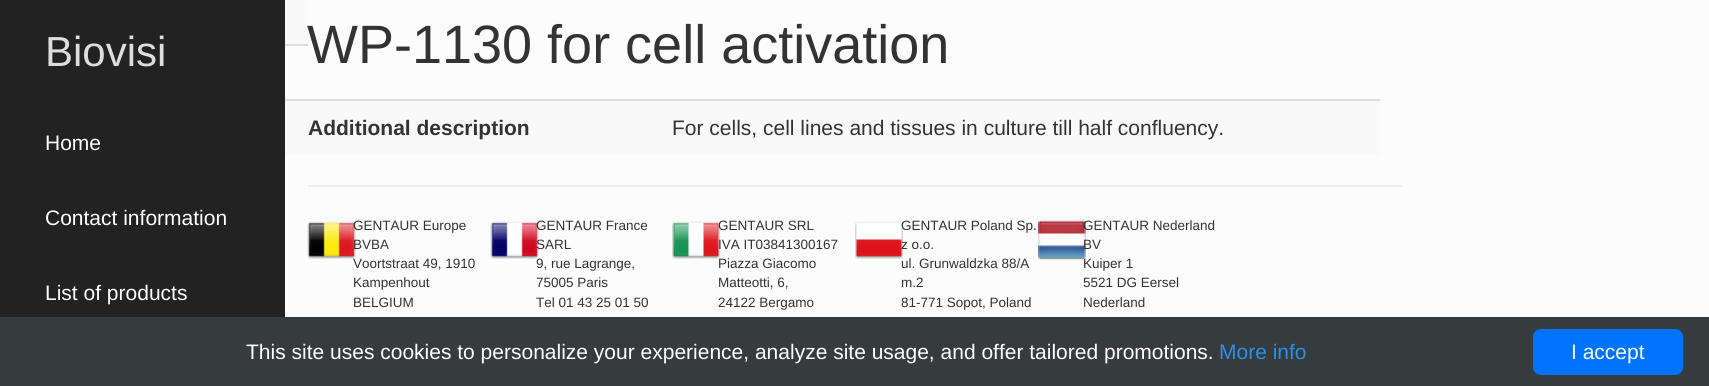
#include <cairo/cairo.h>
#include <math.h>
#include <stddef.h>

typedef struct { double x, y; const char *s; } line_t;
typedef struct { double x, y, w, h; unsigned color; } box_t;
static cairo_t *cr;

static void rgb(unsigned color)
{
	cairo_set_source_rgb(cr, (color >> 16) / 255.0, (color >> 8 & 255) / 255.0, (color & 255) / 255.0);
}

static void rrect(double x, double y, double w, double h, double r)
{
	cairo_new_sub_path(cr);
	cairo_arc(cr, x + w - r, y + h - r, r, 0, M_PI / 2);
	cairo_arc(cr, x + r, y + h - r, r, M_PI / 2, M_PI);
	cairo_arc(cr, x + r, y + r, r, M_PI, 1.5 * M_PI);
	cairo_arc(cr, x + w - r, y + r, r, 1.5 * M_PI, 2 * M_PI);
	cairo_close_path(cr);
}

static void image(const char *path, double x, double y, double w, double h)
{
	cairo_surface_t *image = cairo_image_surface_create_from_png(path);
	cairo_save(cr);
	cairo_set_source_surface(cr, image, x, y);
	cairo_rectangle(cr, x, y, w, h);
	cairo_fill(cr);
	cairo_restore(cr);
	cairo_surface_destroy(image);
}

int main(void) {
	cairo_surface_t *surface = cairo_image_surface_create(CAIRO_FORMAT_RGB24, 1709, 386);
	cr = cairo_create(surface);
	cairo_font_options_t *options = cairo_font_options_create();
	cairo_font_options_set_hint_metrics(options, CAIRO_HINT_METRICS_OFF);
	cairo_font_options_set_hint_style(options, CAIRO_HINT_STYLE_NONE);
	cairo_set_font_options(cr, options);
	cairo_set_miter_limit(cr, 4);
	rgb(0xfcfcfc);
	cairo_paint(cr);
	{
		static const box_t items[] = {
			{0, 0, 285, 317, 0x222222},
			{285, 0, 23, 44, 0xf9f9f9},
			{285, 44, 23, 2, 0xdddddd},
			{285, 101, 1095, 54, 0xf9f9f9},
			{285, 99, 1095, 2, 0xdddddd},
			{308, 185, 1095, 2, 0xeeeeee},
		};
		for (size_t i = 0; i < sizeof items / sizeof *items; i++) {
			rgb(items[i].color);
			cairo_rectangle(cr, items[i].x, items[i].y, items[i].w, items[i].h);
			cairo_fill(cr);
		}
	}
	image("img/1.png", 307, 221, 49, 38);
	image("img/2.png", 490, 221, 49, 38);
	image("img/3.png", 672, 221, 48, 38);
	image("img/4.png", 855, 221, 48, 38);
	image("img/5.png", 1038, 219, 48, 41);
	rgb(0x363b3e);
	cairo_rectangle(cr, 0, 317, 1709, 69);
	cairo_fill(cr);
	rgb(0x0073ff);
	rrect(1533, 329, 150, 46, 8);
	cairo_fill(cr);
	cairo_select_font_face(cr, "Liberation Sans", CAIRO_FONT_SLANT_NORMAL, CAIRO_FONT_WEIGHT_NORMAL);
	cairo_set_font_size(cr, 42);
	rgb(0xdddddd);
	cairo_move_to(cr, 45, 66);
	cairo_show_text(cr, "Biovisi");
	cairo_set_font_size(cr, 21);
	rgb(0xffffff);
	{
		static const line_t items[] = {
			{45, 150, "Home"},
			{45, 225, "Contact information"},
			{45, 300, "List of products"},
		};
		for (size_t i = 0; i < sizeof items / sizeof *items; i++) {
			cairo_move_to(cr, items[i].x, items[i].y);
			cairo_show_text(cr, items[i].s);
		}
	}
	cairo_set_font_size(cr, 54);
	rgb(0x333333);
	cairo_move_to(cr, 307, 63);
	cairo_show_text(cr, "WP-1130 for cell activation");
	cairo_select_font_face(cr, "Liberation Sans", CAIRO_FONT_SLANT_NORMAL, CAIRO_FONT_WEIGHT_BOLD);
	cairo_set_font_size(cr, 21);
	cairo_move_to(cr, 308, 135);
	cairo_show_text(cr, "Additional description");
	cairo_select_font_face(cr, "Liberation Sans", CAIRO_FONT_SLANT_NORMAL, CAIRO_FONT_WEIGHT_NORMAL);
	cairo_move_to(cr, 672, 135);
	cairo_show_text(cr, "For cells, cell lines and tissues in culture till half confluency.");
	cairo_set_font_size(cr, 13.5);
	{
		static const line_t items[] = {
			{353, 230, "GENTAUR Europe"},
			{353, 249, "BVBA"},
			{353, 268, "Voortstraat 49, 1910"},
			{353, 287, "Kampenhout"},
			{353, 307, "BELGIUM"},
			{536, 230, "GENTAUR France"},
			{536, 249, "SARL"},
			{536, 268, "9, rue Lagrange,"},
			{536, 287, "75005 Paris"},
			{536, 307, "Tel 01 43 25 01 50"},
			{718, 230, "GENTAUR SRL"},
			{718, 249, "IVA IT03841300167"},
			{718, 268, "Piazza Giacomo"},
			{718, 287, "Matteotti, 6,"},
			{718, 307, "24122 Bergamo"},
			{901, 230, "GENTAUR Poland Sp."},
			{901, 249, "z o.o."},
			{901, 268, "ul. Grunwaldzka 88/A"},
			{901, 287, "m.2"},
			{901, 307, "81-771 Sopot, Poland"},
			{1083, 230, "GENTAUR Nederland"},
			{1083, 249, "BV"},
			{1083, 268, "Kuiper 1"},
			{1083, 287, "5521 DG Eersel"},
			{1083, 307, "Nederland"},
		};
		for (size_t i = 0; i < sizeof items / sizeof *items; i++) {
			cairo_move_to(cr, items[i].x, items[i].y);
			cairo_show_text(cr, items[i].s);
		}
	}
	cairo_set_font_size(cr, 21);
	rgb(0xffffff);
	cairo_move_to(cr, 246, 359);
	cairo_show_text(cr, "This site uses cookies to personalize your experience, analyze site usage, and offer tailored promotions.");
	rgb(0x2990ea);
	cairo_move_to(cr, 1219, 359);
	cairo_show_text(cr, "More info");
	rgb(0xffffff);
	cairo_move_to(cr, 1571, 359);
	cairo_show_text(cr, "I accept");
	cairo_surface_write_to_png(surface, "page.png");
	cairo_font_options_destroy(options);
	cairo_destroy(cr);
	cairo_surface_destroy(surface);
	return 0;
}
